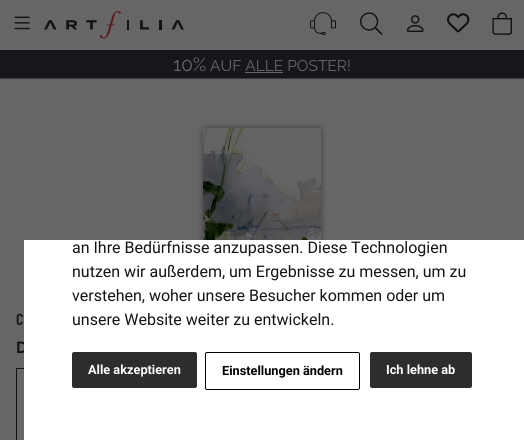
#include <cairo/cairo.h>
#include <math.h>
#include <stddef.h>

typedef struct { double x, y; const char *s; } line_t;
static cairo_t *cr;

static void rgb(unsigned color)
{
	cairo_set_source_rgb(cr, (color >> 16) / 255.0, (color >> 8 & 255) / 255.0, (color & 255) / 255.0);
}

static void rrect(double x, double y, double w, double h, double r)
{
	cairo_new_sub_path(cr);
	cairo_arc(cr, x + w - r, y + h - r, r, 0, M_PI / 2);
	cairo_arc(cr, x + r, y + h - r, r, M_PI / 2, M_PI);
	cairo_arc(cr, x + r, y + r, r, M_PI, 1.5 * M_PI);
	cairo_arc(cr, x + w - r, y + r, r, 1.5 * M_PI, 2 * M_PI);
	cairo_close_path(cr);
}

static void image(const char *path, double x, double y, double w, double h)
{
	cairo_surface_t *image = cairo_image_surface_create_from_png(path);
	cairo_save(cr);
	cairo_set_source_surface(cr, image, x, y);
	cairo_rectangle(cr, x, y, w, h);
	cairo_fill(cr);
	cairo_restore(cr);
	cairo_surface_destroy(image);
}

int main(void) {
	cairo_surface_t *surface = cairo_image_surface_create(CAIRO_FORMAT_RGB24, 524, 440);
	cr = cairo_create(surface);
	cairo_font_options_t *options = cairo_font_options_create();
	cairo_font_options_set_hint_metrics(options, CAIRO_HINT_METRICS_OFF);
	cairo_font_options_set_hint_style(options, CAIRO_HINT_STYLE_NONE);
	cairo_set_font_options(cr, options);
	cairo_set_miter_limit(cr, 4);
	rgb(0x666666);
	cairo_paint(cr);
	rgb(0x3d3d3d);
	cairo_rectangle(cr, 0, 78, 524, 1);
	cairo_fill(cr);
	image("img/1.png", 14, 16, 16, 14);
	image("img/2.png", 44, 11, 140, 28);
	image("img/3.png", 310, 12, 26, 23);
	image("img/4.png", 360, 12, 23, 23);
	image("img/5.png", 406, 15, 18, 17);
	image("img/6.png", 447, 13, 23, 20);
	image("img/7.png", 492, 12, 20, 23);
	rgb(0x15171a);
	cairo_rectangle(cr, 0, 50, 524, 28);
	cairo_fill(cr);
	rgb(0x666666);
	cairo_rectangle(cr, 245, 72, 38, 1);
	cairo_fill(cr);
	image("img/8.png", 198, 123, 128, 117);
	cairo_rectangle(cr, 16.5, 368.5, 99, 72);
	rgb(0x121212);
	cairo_set_line_width(cr, 1);
	cairo_stroke(cr);
	cairo_select_font_face(cr, "Raleway", CAIRO_FONT_SLANT_NORMAL, CAIRO_FONT_WEIGHT_NORMAL);
	cairo_set_font_size(cr, 19);
	rgb(0x666666);
	cairo_move_to(cr, 173, 71);
	cairo_show_text(cr, "10%");
	cairo_set_font_size(cr, 15.5);
	cairo_move_to(cr, 210, 71);
	cairo_show_text(cr, "AUF ALLE POSTER!");
	cairo_select_font_face(cr, "Barlow Condensed SemiBold", CAIRO_FONT_SLANT_NORMAL, CAIRO_FONT_WEIGHT_NORMAL);
	cairo_set_font_size(cr, 16);
	rgb(0x141414);
	cairo_move_to(cr, 16, 325);
	cairo_show_text(cr, "C");
	cairo_select_font_face(cr, "Raleway", CAIRO_FONT_SLANT_NORMAL, CAIRO_FONT_WEIGHT_BOLD);
	cairo_move_to(cr, 16, 353);
	cairo_show_text(cr, "D");
	rgb(0xffffff);
	cairo_rectangle(cr, 24, 240, 500, 200);
	cairo_fill(cr);
	cairo_select_font_face(cr, "Roboto", CAIRO_FONT_SLANT_NORMAL, CAIRO_FONT_WEIGHT_NORMAL);
	rgb(0x141414);
	{
		static const line_t items[] = {
			{72, 253, "an Ihre Bedürfnisse anzupassen. Diese Technologien"},
			{72, 277, "nutzen wir außerdem, um Ergebnisse zu messen, um zu"},
			{72, 301, "verstehen, woher unsere Besucher kommen oder um"},
			{72, 325, "unsere Website weiter zu entwickeln."},
		};
		for (size_t i = 0; i < sizeof items / sizeof *items; i++) {
			cairo_move_to(cr, items[i].x, items[i].y);
			cairo_show_text(cr, items[i].s);
		}
	}
	rgb(0x2d2e2c);
	rrect(72, 352, 125, 36, 2);
	cairo_fill(cr);
	cairo_select_font_face(cr, "Roboto", CAIRO_FONT_SLANT_NORMAL, CAIRO_FONT_WEIGHT_BOLD);
	cairo_set_font_size(cr, 12.75);
	rgb(0xffffff);
	cairo_move_to(cr, 88, 374);
	cairo_show_text(cr, "Alle akzeptieren");
	rrect(205.5, 352.5, 154, 37, 1.5);
	rgb(0x000000);
	cairo_stroke(cr);
	cairo_move_to(cr, 222, 375);
	cairo_show_text(cr, "Einstellungen ändern");
	rgb(0x2d2e2c);
	rrect(370, 352, 102, 36, 2);
	cairo_fill(cr);
	rgb(0xffffff);
	cairo_move_to(cr, 386, 374);
	cairo_show_text(cr, "Ich lehne ab");
	cairo_surface_write_to_png(surface, "page.png");
	cairo_font_options_destroy(options);
	cairo_destroy(cr);
	cairo_surface_destroy(surface);
	return 0;
}
